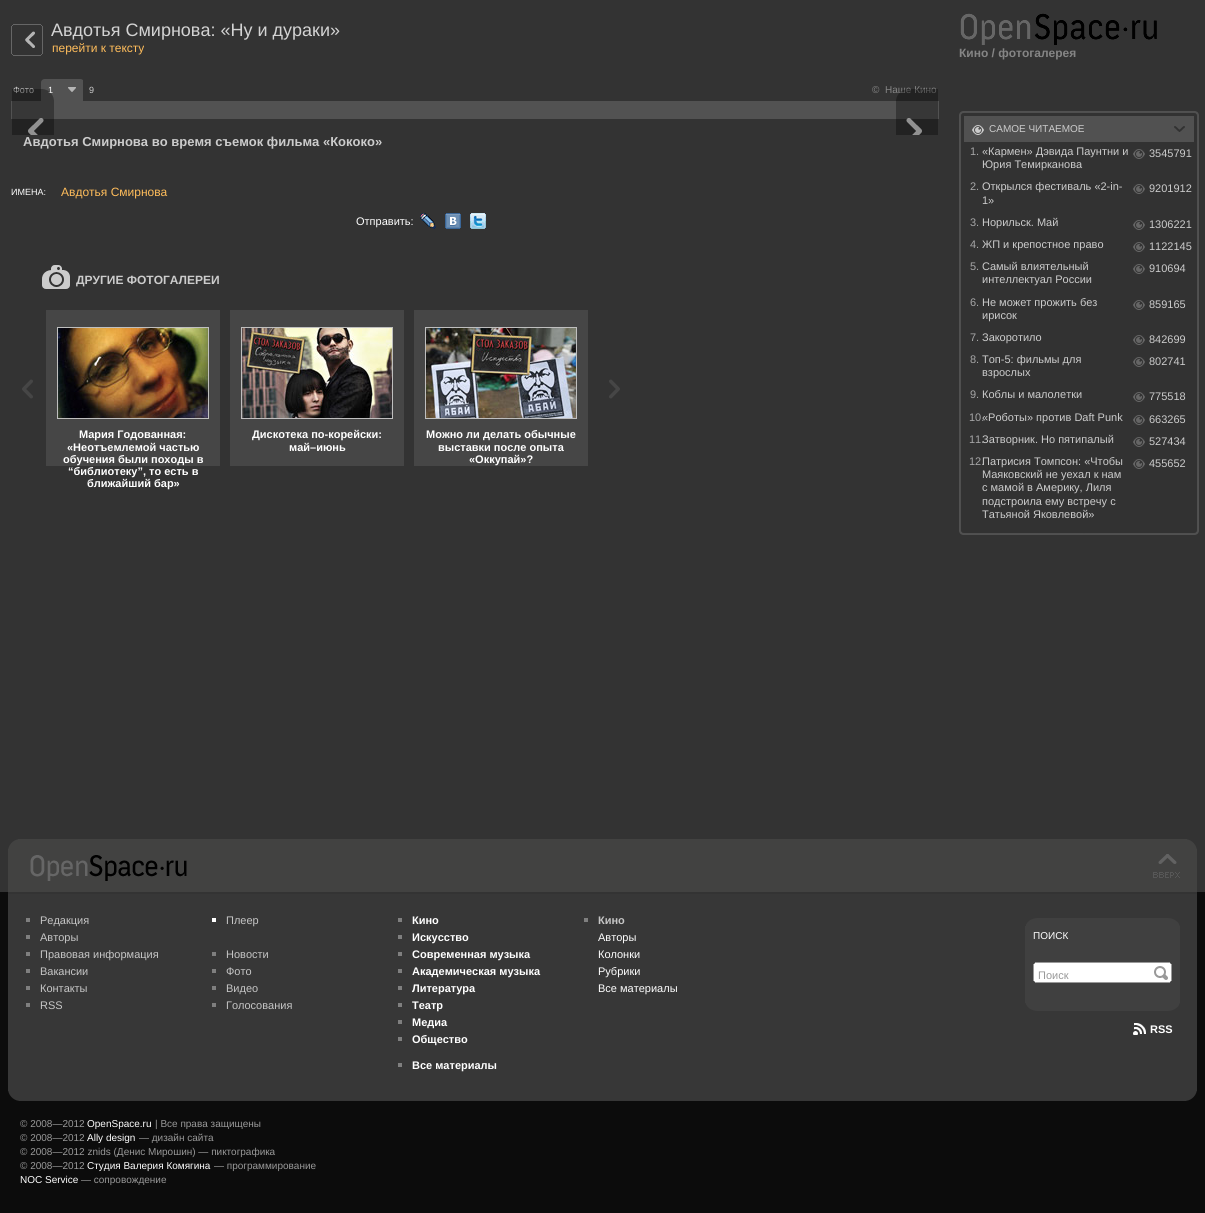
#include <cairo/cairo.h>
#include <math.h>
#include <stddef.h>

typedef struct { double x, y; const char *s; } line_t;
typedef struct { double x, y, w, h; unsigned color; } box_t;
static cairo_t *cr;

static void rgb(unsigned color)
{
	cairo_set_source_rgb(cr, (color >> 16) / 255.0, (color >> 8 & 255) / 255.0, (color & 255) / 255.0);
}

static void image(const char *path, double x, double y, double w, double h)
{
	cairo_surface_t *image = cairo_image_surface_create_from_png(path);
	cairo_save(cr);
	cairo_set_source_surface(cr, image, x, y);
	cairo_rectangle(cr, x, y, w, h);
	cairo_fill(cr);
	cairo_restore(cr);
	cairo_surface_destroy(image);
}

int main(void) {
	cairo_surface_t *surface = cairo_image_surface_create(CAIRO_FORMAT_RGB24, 1205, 1213);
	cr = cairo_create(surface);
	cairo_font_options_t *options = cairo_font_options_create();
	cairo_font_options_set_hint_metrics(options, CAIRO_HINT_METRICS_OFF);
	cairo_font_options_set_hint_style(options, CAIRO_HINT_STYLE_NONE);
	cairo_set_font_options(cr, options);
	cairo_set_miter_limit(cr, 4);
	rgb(0x333333);
	cairo_paint(cr);
	image("img/1.png", 11, 24, 32, 32);
	image("img/2.png", 41, 79, 42, 22);
	rgb(0x525252);
	cairo_rectangle(cr, 11, 101, 928, 18);
	cairo_fill(cr);
	image("img/5.png", 420, 213, 16, 16);
	image("img/6.png", 445, 213, 16, 16);
	image("img/7.png", 470, 213, 16, 16);
	image("img/8.png", 42, 265, 28, 24);
	image("img/9.png", 22, 379, 11, 20);
	image("img/10.png", 609, 379, 11, 20);
	rgb(0x464646);
	cairo_rectangle(cr, 46, 310, 174, 156);
	cairo_fill(cr);
	cairo_rectangle(cr, 57.5, 327.5, 151, 91);
	rgb(0xbfbfbf);
	cairo_set_line_width(cr, 1);
	cairo_stroke(cr);
	image("img/11.png", 58, 328, 150, 90);
	rgb(0x464646);
	cairo_rectangle(cr, 230, 310, 174, 156);
	cairo_fill(cr);
	cairo_rectangle(cr, 241.5, 327.5, 151, 91);
	rgb(0xbfbfbf);
	cairo_stroke(cr);
	image("img/12.png", 242, 328, 150, 90);
	rgb(0x464646);
	cairo_rectangle(cr, 414, 310, 174, 156);
	cairo_fill(cr);
	cairo_rectangle(cr, 425.5, 327.5, 151, 91);
	rgb(0xbfbfbf);
	cairo_stroke(cr);
	image("img/13.png", 426, 328, 150, 90);
	image("img/14.png", 960, 13, 197, 32);
	image("img/15.png", 959, 111, 240, 5);
	image("img/16.png", 959, 116, 240, 419);
	image("img/17.png", 964, 116, 230, 26);
	image("img/18.png", 1133, 149, 12, 10);
	image("img/18.png", 1133, 184, 12, 10);
	image("img/18.png", 1133, 220, 12, 10);
	image("img/18.png", 1133, 242, 12, 10);
	image("img/18.png", 1133, 264, 12, 10);
	image("img/18.png", 1133, 300, 12, 10);
	image("img/18.png", 1133, 335, 12, 10);
	image("img/18.png", 1133, 357, 12, 10);
	image("img/18.png", 1133, 392, 12, 10);
	image("img/18.png", 1133, 415, 12, 10);
	image("img/18.png", 1133, 437, 12, 10);
	image("img/18.png", 1133, 459, 12, 10);
	rgb(0x424241);
	cairo_rectangle(cr, 8, 839, 1189, 53);
	cairo_fill(cr);
	image("img/19.png", 8, 839, 10, 10);
	image("img/20.png", 1187, 839, 10, 10);
	image("img/21.png", 30, 855, 157, 26);
	image("img/22.png", 1153, 854, 27, 24);
	rgb(0x0c0c0c);
	cairo_rectangle(cr, 0, 1101, 1205, 112);
	cairo_fill(cr);
	rgb(0x373737);
	cairo_rectangle(cr, 8, 894, 1189, 207);
	cairo_fill(cr);
	image("img/23.png", 1186, 1091, 11, 10);
	rgb(0x0c0c0c);
	cairo_rectangle(cr, 1197, 892, 8, 209);
	cairo_fill(cr);
	cairo_rectangle(cr, 0, 892, 8, 209);
	cairo_fill(cr);
	image("img/24.png", 8, 1091, 11, 10);
	{
		static const box_t items[] = {
			{26, 918, 4, 4, 0x7f7f7f},
			{26, 935, 4, 4, 0x7f7f7f},
			{26, 952, 4, 4, 0x7f7f7f},
			{26, 969, 4, 4, 0x7f7f7f},
			{26, 986, 4, 4, 0x7f7f7f},
			{26, 1003, 4, 4, 0x7f7f7f},
			{212, 918, 4, 4, 0xffffff},
			{212, 952, 4, 4, 0x7f7f7f},
			{212, 969, 4, 4, 0x7f7f7f},
			{212, 986, 4, 4, 0x7f7f7f},
			{212, 1003, 4, 4, 0x7f7f7f},
			{398, 918, 4, 4, 0x7f7f7f},
			{398, 935, 4, 4, 0x7f7f7f},
			{398, 952, 4, 4, 0x7f7f7f},
			{398, 969, 4, 4, 0x7f7f7f},
			{398, 986, 4, 4, 0x7f7f7f},
			{398, 1003, 4, 4, 0x7f7f7f},
			{398, 1020, 4, 4, 0x7f7f7f},
			{398, 1037, 4, 4, 0x7f7f7f},
			{398, 1063, 4, 4, 0x7f7f7f},
			{584, 918, 4, 4, 0x7f7f7f},
		};
		for (size_t i = 0; i < sizeof items / sizeof *items; i++) {
			rgb(items[i].color);
			cairo_rectangle(cr, items[i].x, items[i].y, items[i].w, items[i].h);
			cairo_fill(cr);
		}
	}
	image("img/25.png", 1026, 918, 154, 8);
	rgb(0x404040);
	cairo_rectangle(cr, 1025, 926, 155, 77);
	cairo_fill(cr);
	image("img/26.png", 1025, 1003, 155, 8);
	image("img/27.png", 1033, 962, 121, 21);
	image("img/28.png", 1154, 962, 18, 21);
	image("img/29.png", 1133, 1023, 13, 12);
	cairo_select_font_face(cr, "Liberation Sans", CAIRO_FONT_SLANT_NORMAL, CAIRO_FONT_WEIGHT_NORMAL);
	cairo_set_font_size(cr, 18);
	rgb(0xd3d3d3);
	cairo_move_to(cr, 51, 36);
	cairo_show_text(cr, "Авдотья Смирнова: «Ну и дураки»");
	cairo_set_font_size(cr, 12);
	rgb(0xffbd5b);
	cairo_move_to(cr, 52, 52);
	cairo_show_text(cr, "перейти к тексту");
	cairo_set_font_size(cr, 9);
	rgb(0xcccccc);
	cairo_move_to(cr, 13, 93);
	cairo_show_text(cr, "Фото");
	rgb(0xffffff);
	cairo_move_to(cr, 48, 93);
	cairo_show_text(cr, "1");
	rgb(0xcccccc);
	cairo_move_to(cr, 89, 93);
	cairo_show_text(cr, "9");
	cairo_set_font_size(cr, 10);
	rgb(0x858585);
	cairo_move_to(cr, 872, 93);
	cairo_show_text(cr, "©");
	cairo_move_to(cr, 885, 93);
	cairo_show_text(cr, "Наше Кино");
	image("img/3.png", 12, 89, 42, 46);
	image("img/4.png", 896, 89, 42, 46);
	cairo_select_font_face(cr, "Liberation Sans", CAIRO_FONT_SLANT_NORMAL, CAIRO_FONT_WEIGHT_BOLD);
	cairo_set_font_size(cr, 13);
	rgb(0xcccccc);
	cairo_move_to(cr, 23, 146);
	cairo_show_text(cr, "Авдотья Смирнова во время съемок фильма «Кококо»");
	cairo_select_font_face(cr, "Liberation Sans", CAIRO_FONT_SLANT_NORMAL, CAIRO_FONT_WEIGHT_NORMAL);
	cairo_set_font_size(cr, 9);
	rgb(0xffffff);
	cairo_move_to(cr, 11, 195);
	cairo_show_text(cr, "ИМЕНА:");
	cairo_set_font_size(cr, 12);
	rgb(0xffbd5b);
	cairo_move_to(cr, 61, 196);
	cairo_show_text(cr, "Авдотья Смирнова");
	cairo_set_font_size(cr, 11);
	rgb(0xffffff);
	cairo_move_to(cr, 356, 225);
	cairo_show_text(cr, "Отправить:");
	cairo_select_font_face(cr, "Liberation Sans", CAIRO_FONT_SLANT_NORMAL, CAIRO_FONT_WEIGHT_BOLD);
	cairo_set_font_size(cr, 12);
	rgb(0xcccccc);
	cairo_move_to(cr, 76, 284);
	cairo_show_text(cr, "ДРУГИЕ ФОТОГАЛЕРЕИ");
	cairo_set_font_size(cr, 11);
	rgb(0xffffff);
	{
		static const line_t items[] = {
			{79, 438, "Мария Годованная:"},
			{67, 451, "«Неотъемлемой частью"},
			{63, 463, "обучения были походы в"},
			{68, 475, "“библиотеку”, то есть в"},
			{87, 487, "ближайший бар»"},
			{252, 438, "Дискотека по-корейски:"},
			{289, 451, "май–июнь"},
			{426, 438, "Можно ли делать обычные"},
			{438, 451, "выставки после опыта"},
			{469, 463, "«Оккупай»?"},
		};
		for (size_t i = 0; i < sizeof items / sizeof *items; i++) {
			cairo_move_to(cr, items[i].x, items[i].y);
			cairo_show_text(cr, items[i].s);
		}
	}
	cairo_set_font_size(cr, 12);
	rgb(0x858585);
	cairo_move_to(cr, 959, 57);
	cairo_show_text(cr, "Кино / фотогалерея");
	cairo_select_font_face(cr, "Liberation Sans", CAIRO_FONT_SLANT_NORMAL, CAIRO_FONT_WEIGHT_NORMAL);
	cairo_set_font_size(cr, 10);
	rgb(0xcccccc);
	cairo_move_to(cr, 989, 132);
	cairo_show_text(cr, "САМОЕ ЧИТАЕМОЕ");
	cairo_set_font_size(cr, 11);
	rgb(0xa6a6a7);
	cairo_move_to(cr, 970, 155);
	cairo_show_text(cr, "1.");
	rgb(0xcccccc);
	{
		static const line_t items[] = {
			{982, 155, "«Кармен» Дэвида Паунтни и"},
			{982, 168, "Юрия Темирканова"},
			{1149, 157, "3545791"},
		};
		for (size_t i = 0; i < sizeof items / sizeof *items; i++) {
			cairo_move_to(cr, items[i].x, items[i].y);
			cairo_show_text(cr, items[i].s);
		}
	}
	rgb(0xa6a6a7);
	cairo_move_to(cr, 970, 190);
	cairo_show_text(cr, "2.");
	rgb(0xcccccc);
	{
		static const line_t items[] = {
			{982, 190, "Открылся фестиваль «2-in-"},
			{982, 204, "1»"},
			{1149, 192, "9201912"},
		};
		for (size_t i = 0; i < sizeof items / sizeof *items; i++) {
			cairo_move_to(cr, items[i].x, items[i].y);
			cairo_show_text(cr, items[i].s);
		}
	}
	rgb(0xa6a6a7);
	cairo_move_to(cr, 970, 226);
	cairo_show_text(cr, "3.");
	rgb(0xcccccc);
	cairo_move_to(cr, 982, 226);
	cairo_show_text(cr, "Норильск. Май");
	cairo_move_to(cr, 1149, 228);
	cairo_show_text(cr, "1306221");
	rgb(0xa6a6a7);
	cairo_move_to(cr, 970, 248);
	cairo_show_text(cr, "4.");
	rgb(0xcccccc);
	cairo_move_to(cr, 982, 248);
	cairo_show_text(cr, "ЖП и крепостное право");
	cairo_move_to(cr, 1149, 250);
	cairo_show_text(cr, "1122145");
	rgb(0xa6a6a7);
	cairo_move_to(cr, 970, 270);
	cairo_show_text(cr, "5.");
	rgb(0xcccccc);
	{
		static const line_t items[] = {
			{982, 270, "Самый влиятельный"},
			{982, 283, "интеллектуал России"},
			{1149, 272, "910694"},
		};
		for (size_t i = 0; i < sizeof items / sizeof *items; i++) {
			cairo_move_to(cr, items[i].x, items[i].y);
			cairo_show_text(cr, items[i].s);
		}
	}
	rgb(0xa6a6a7);
	cairo_move_to(cr, 970, 306);
	cairo_show_text(cr, "6.");
	rgb(0xcccccc);
	{
		static const line_t items[] = {
			{982, 306, "Не может прожить без"},
			{982, 319, "ирисок"},
			{1149, 308, "859165"},
		};
		for (size_t i = 0; i < sizeof items / sizeof *items; i++) {
			cairo_move_to(cr, items[i].x, items[i].y);
			cairo_show_text(cr, items[i].s);
		}
	}
	rgb(0xa6a6a7);
	cairo_move_to(cr, 970, 341);
	cairo_show_text(cr, "7.");
	rgb(0xcccccc);
	cairo_move_to(cr, 982, 341);
	cairo_show_text(cr, "Закоротило");
	cairo_move_to(cr, 1149, 343);
	cairo_show_text(cr, "842699");
	rgb(0xa6a6a7);
	cairo_move_to(cr, 970, 363);
	cairo_show_text(cr, "8.");
	rgb(0xcccccc);
	{
		static const line_t items[] = {
			{982, 363, "Топ-5: фильмы для"},
			{982, 376, "взрослых"},
			{1149, 365, "802741"},
		};
		for (size_t i = 0; i < sizeof items / sizeof *items; i++) {
			cairo_move_to(cr, items[i].x, items[i].y);
			cairo_show_text(cr, items[i].s);
		}
	}
	rgb(0xa6a6a7);
	cairo_move_to(cr, 970, 398);
	cairo_show_text(cr, "9.");
	rgb(0xcccccc);
	cairo_move_to(cr, 982, 398);
	cairo_show_text(cr, "Коблы и малолетки");
	cairo_move_to(cr, 1149, 400);
	cairo_show_text(cr, "775518");
	rgb(0xa6a6a7);
	cairo_move_to(cr, 969, 421);
	cairo_show_text(cr, "10.");
	rgb(0xcccccc);
	cairo_move_to(cr, 982, 421);
	cairo_show_text(cr, "«Роботы» против Daft Punk");
	cairo_move_to(cr, 1149, 423);
	cairo_show_text(cr, "663265");
	rgb(0xa6a6a7);
	cairo_move_to(cr, 969, 443);
	cairo_show_text(cr, "11.");
	rgb(0xcccccc);
	cairo_move_to(cr, 982, 443);
	cairo_show_text(cr, "Затворник. Но пятипалый");
	cairo_move_to(cr, 1149, 445);
	cairo_show_text(cr, "527434");
	rgb(0xa6a6a7);
	cairo_move_to(cr, 969, 465);
	cairo_show_text(cr, "12.");
	rgb(0xcccccc);
	{
		static const line_t items[] = {
			{982, 465, "Патрисия Томпсон: «Чтобы"},
			{982, 478, "Маяковский не уехал к нам"},
			{982, 491, "с мамой в Америку, Лиля"},
			{982, 505, "подстроила ему встречу с"},
			{982, 518, "Татьяной Яковлевой»"},
			{1149, 467, "455652"},
		};
		for (size_t i = 0; i < sizeof items / sizeof *items; i++) {
			cairo_move_to(cr, items[i].x, items[i].y);
			cairo_show_text(cr, items[i].s);
		}
	}
	rgb(0xc6c6c6);
	{
		static const line_t items[] = {
			{40, 924, "Редакция"},
			{40, 941, "Авторы"},
			{40, 958, "Правовая информация"},
			{40, 975, "Вакансии"},
			{40, 992, "Контакты"},
			{40, 1009, "RSS"},
			{226, 924, "Плеер"},
			{226, 958, "Новости"},
			{226, 975, "Фото"},
			{226, 992, "Видео"},
			{226, 1009, "Голосования"},
		};
		for (size_t i = 0; i < sizeof items / sizeof *items; i++) {
			cairo_move_to(cr, items[i].x, items[i].y);
			cairo_show_text(cr, items[i].s);
		}
	}
	cairo_select_font_face(cr, "Liberation Sans", CAIRO_FONT_SLANT_NORMAL, CAIRO_FONT_WEIGHT_BOLD);
	rgb(0xffffff);
	{
		static const line_t items[] = {
			{412, 924, "Кино"},
			{412, 941, "Искусство"},
			{412, 958, "Современная музыка"},
			{412, 975, "Академическая музыка"},
			{412, 992, "Литература"},
			{412, 1009, "Театр"},
			{412, 1026, "Медиа"},
			{412, 1043, "Общество"},
			{412, 1069, "Все материалы"},
		};
		for (size_t i = 0; i < sizeof items / sizeof *items; i++) {
			cairo_move_to(cr, items[i].x, items[i].y);
			cairo_show_text(cr, items[i].s);
		}
	}
	rgb(0xc6c6c6);
	cairo_move_to(cr, 598, 924);
	cairo_show_text(cr, "Кино");
	cairo_select_font_face(cr, "Liberation Sans", CAIRO_FONT_SLANT_NORMAL, CAIRO_FONT_WEIGHT_NORMAL);
	rgb(0xffffff);
	{
		static const line_t items[] = {
			{598, 941, "Авторы"},
			{598, 958, "Колонки"},
			{598, 975, "Рубрики"},
			{598, 992, "Все материалы"},
		};
		for (size_t i = 0; i < sizeof items / sizeof *items; i++) {
			cairo_move_to(cr, items[i].x, items[i].y);
			cairo_show_text(cr, items[i].s);
		}
	}
	cairo_set_font_size(cr, 10);
	cairo_move_to(cr, 1033, 939);
	cairo_show_text(cr, "ПОИСК");
	cairo_set_font_size(cr, 11);
	rgb(0x999999);
	cairo_move_to(cr, 1038, 979);
	cairo_show_text(cr, "Поиск");
	cairo_select_font_face(cr, "Liberation Sans", CAIRO_FONT_SLANT_NORMAL, CAIRO_FONT_WEIGHT_BOLD);
	rgb(0xffffff);
	cairo_move_to(cr, 1150, 1033);
	cairo_show_text(cr, "RSS");
	cairo_select_font_face(cr, "Liberation Sans", CAIRO_FONT_SLANT_NORMAL, CAIRO_FONT_WEIGHT_NORMAL);
	cairo_set_font_size(cr, 10);
	rgb(0x999999);
	cairo_move_to(cr, 20, 1127);
	cairo_show_text(cr, "© 2008—2012");
	rgb(0xffffff);
	cairo_move_to(cr, 87, 1127);
	cairo_show_text(cr, "OpenSpace.ru");
	rgb(0x999999);
	cairo_move_to(cr, 155, 1127);
	cairo_show_text(cr, "| Все права защищены");
	cairo_move_to(cr, 20, 1141);
	cairo_show_text(cr, "© 2008—2012");
	rgb(0xffffff);
	cairo_move_to(cr, 87, 1141);
	cairo_show_text(cr, "Ally design");
	rgb(0x999999);
	{
		static const line_t items[] = {
			{139, 1141, "— дизайн сайта"},
			{20, 1155, "© 2008—2012 znids (Денис Мирошин) — пиктографика"},
			{20, 1169, "© 2008—2012"},
		};
		for (size_t i = 0; i < sizeof items / sizeof *items; i++) {
			cairo_move_to(cr, items[i].x, items[i].y);
			cairo_show_text(cr, items[i].s);
		}
	}
	rgb(0xffffff);
	cairo_move_to(cr, 87, 1169);
	cairo_show_text(cr, "Студия Валерия Комягина");
	rgb(0x999999);
	cairo_move_to(cr, 214, 1169);
	cairo_show_text(cr, "— программирование");
	rgb(0xffffff);
	cairo_move_to(cr, 20, 1183);
	cairo_show_text(cr, "NOC Service");
	rgb(0x999999);
	cairo_move_to(cr, 81, 1183);
	cairo_show_text(cr, "— сопровождение");
	cairo_surface_write_to_png(surface, "page.png");
	cairo_font_options_destroy(options);
	cairo_destroy(cr);
	cairo_surface_destroy(surface);
	return 0;
}
